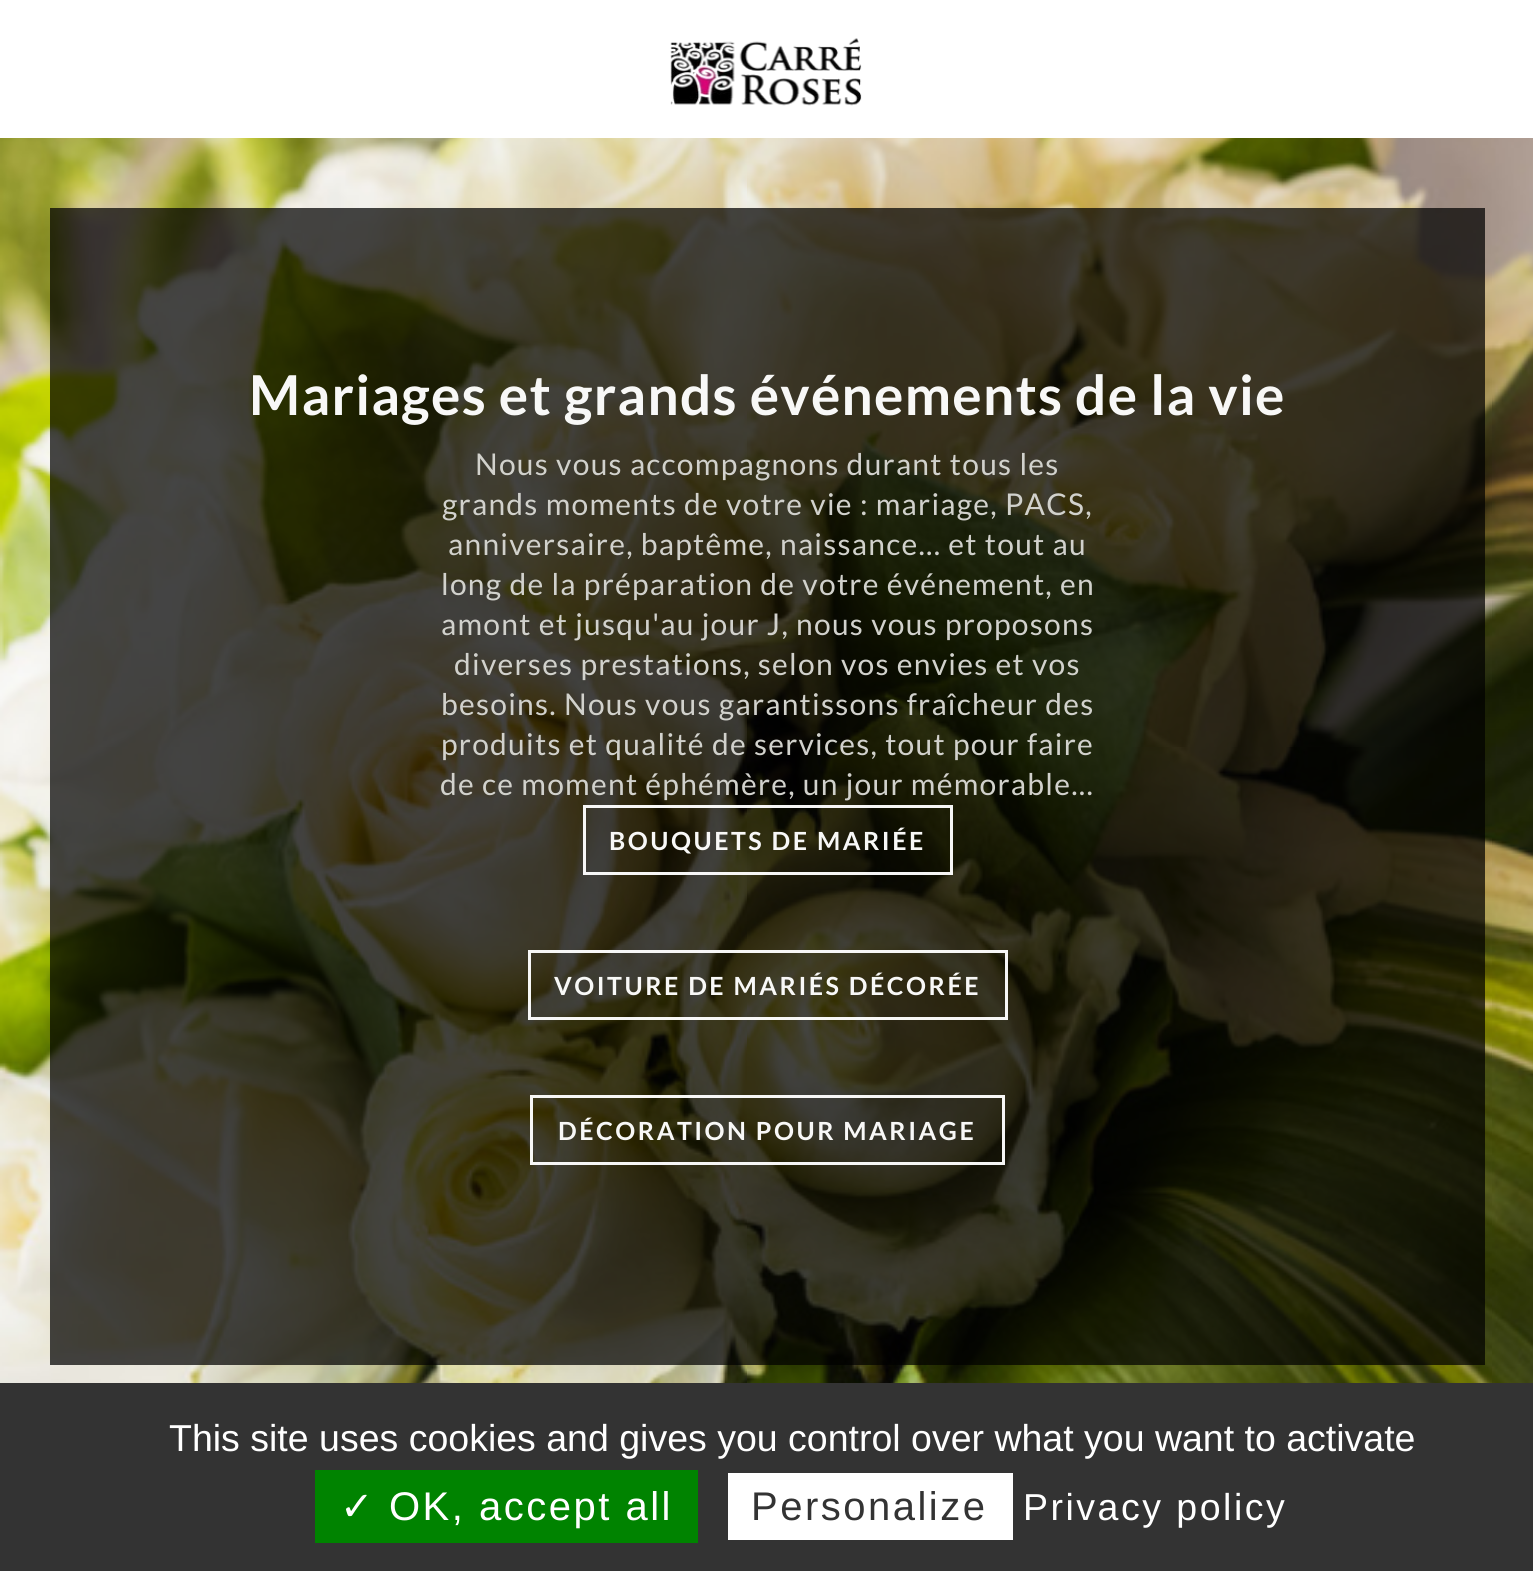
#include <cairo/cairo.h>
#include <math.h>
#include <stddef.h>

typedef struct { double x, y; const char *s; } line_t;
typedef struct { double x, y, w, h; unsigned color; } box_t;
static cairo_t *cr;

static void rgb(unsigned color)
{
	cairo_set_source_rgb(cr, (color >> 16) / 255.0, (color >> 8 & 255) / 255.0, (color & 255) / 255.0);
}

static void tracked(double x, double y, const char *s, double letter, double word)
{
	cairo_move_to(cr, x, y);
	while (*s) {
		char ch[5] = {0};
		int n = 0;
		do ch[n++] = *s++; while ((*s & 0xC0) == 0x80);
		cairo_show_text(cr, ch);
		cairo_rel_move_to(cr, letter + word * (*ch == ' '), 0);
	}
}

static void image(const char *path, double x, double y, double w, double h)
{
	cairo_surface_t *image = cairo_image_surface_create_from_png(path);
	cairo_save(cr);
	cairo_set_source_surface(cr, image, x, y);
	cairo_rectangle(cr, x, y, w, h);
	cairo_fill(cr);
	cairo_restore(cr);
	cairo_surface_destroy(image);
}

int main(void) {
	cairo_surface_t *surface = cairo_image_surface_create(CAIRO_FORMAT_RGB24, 1533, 1571);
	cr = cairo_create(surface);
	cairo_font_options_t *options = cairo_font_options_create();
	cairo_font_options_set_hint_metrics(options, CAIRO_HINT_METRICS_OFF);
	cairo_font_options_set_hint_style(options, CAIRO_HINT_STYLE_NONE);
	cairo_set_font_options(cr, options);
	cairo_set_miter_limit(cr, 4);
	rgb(0xffffff);
	cairo_paint(cr);
	image("img/1.png", 670, 38, 192, 68);
	image("img/2.png", 0, 138, 1533, 1245);
	cairo_set_source_rgba(cr, 0, 0, 0, 0.72);
	cairo_rectangle(cr, 50, 208, 1435, 1157);
	cairo_fill(cr);
	cairo_rectangle(cr, 584.5, 806.5, 367, 67);
	cairo_set_source_rgba(cr, 1, 1, 1, 0.96);
	cairo_set_line_width(cr, 3);
	cairo_stroke(cr);
	cairo_rectangle(cr, 529.5, 951.5, 477, 67);
	cairo_stroke(cr);
	cairo_rectangle(cr, 531.5, 1096.5, 472, 67);
	cairo_stroke(cr);
	{
		static const box_t items[] = {
			{0, 1383, 1533, 188, 0x333333},
			{315, 1470, 383, 73, 0x008300},
			{728, 1473, 285, 67, 0xffffff},
		};
		for (size_t i = 0; i < sizeof items / sizeof *items; i++) {
			rgb(items[i].color);
			cairo_rectangle(cr, items[i].x, items[i].y, items[i].w, items[i].h);
			cairo_fill(cr);
		}
	}
	cairo_select_font_face(cr, "Lato", CAIRO_FONT_SLANT_NORMAL, CAIRO_FONT_WEIGHT_BOLD);
	cairo_set_font_size(cr, 55);
	rgb(0xf8f8f7);
	tracked(249, 415, "Mariages et grands événements de la vie", 1.25, 0);
	cairo_select_font_face(cr, "Lato", CAIRO_FONT_SLANT_NORMAL, CAIRO_FONT_WEIGHT_NORMAL);
	cairo_set_font_size(cr, 30);
	rgb(0xd1d1cc);
	{
		static const line_t items[] = {
			{475, 475, "Nous vous accompagnons durant tous les"},
			{442, 515, "grands moments de votre vie : mariage, PACS,"},
			{448, 555, "anniversaire, baptême, naissance... et tout au"},
			{441, 595, "long de la préparation de votre événement, en"},
			{441, 635, "amont et jusqu'au jour J, nous vous proposons"},
			{454, 675, "diverses prestations, selon vos envies et vos"},
			{441, 715, "besoins. Nous vous garantissons fraîcheur des"},
			{441, 755, "produits et qualité de services, tout pour faire"},
			{440, 795, "de ce moment éphémère, un jour mémorable..."},
		};
		for (size_t i = 0; i < sizeof items / sizeof *items; i++) {
			tracked(items[i].x, items[i].y, items[i].s, 1.25, 0);
		}
	}
	cairo_select_font_face(cr, "Lato", CAIRO_FONT_SLANT_NORMAL, CAIRO_FONT_WEIGHT_BOLD);
	cairo_set_font_size(cr, 25);
	rgb(0xf8f8f7);
	{
		static const line_t items[] = {
			{609, 850, "BOUQUETS DE MARIÉE"},
			{554, 995, "VOITURE DE MARIÉS DÉCORÉE"},
			{558, 1140, "DÉCORATION POUR MARIAGE"},
		};
		for (size_t i = 0; i < sizeof items / sizeof *items; i++) {
			tracked(items[i].x, items[i].y, items[i].s, 2.5, 0);
		}
	}
	cairo_select_font_face(cr, "Liberation Sans", CAIRO_FONT_SLANT_NORMAL, CAIRO_FONT_WEIGHT_NORMAL);
	cairo_set_font_size(cr, 37.5);
	rgb(0xffffff);
	cairo_move_to(cr, 169, 1451);
	cairo_show_text(cr, "This site uses cookies and gives you control over what you want to activate");
	cairo_select_font_face(cr, "DejaVu Sans", CAIRO_FONT_SLANT_NORMAL, CAIRO_FONT_WEIGHT_NORMAL);
	cairo_set_font_size(cr, 40);
	tracked(340, 1520, "✓", 2.5, 0);
	cairo_select_font_face(cr, "Liberation Sans", CAIRO_FONT_SLANT_NORMAL, CAIRO_FONT_WEIGHT_NORMAL);
	tracked(389, 1520, "OK, accept all", 2.5, 0);
	rgb(0x333333);
	tracked(751, 1520, "Personalize", 2.5, 0);
	cairo_set_font_size(cr, 37.5);
	rgb(0xffffff);
	tracked(1023, 1520, "Privacy policy", 2.5, 0);
	cairo_surface_write_to_png(surface, "page.png");
	cairo_font_options_destroy(options);
	cairo_destroy(cr);
	cairo_surface_destroy(surface);
	return 0;
}
